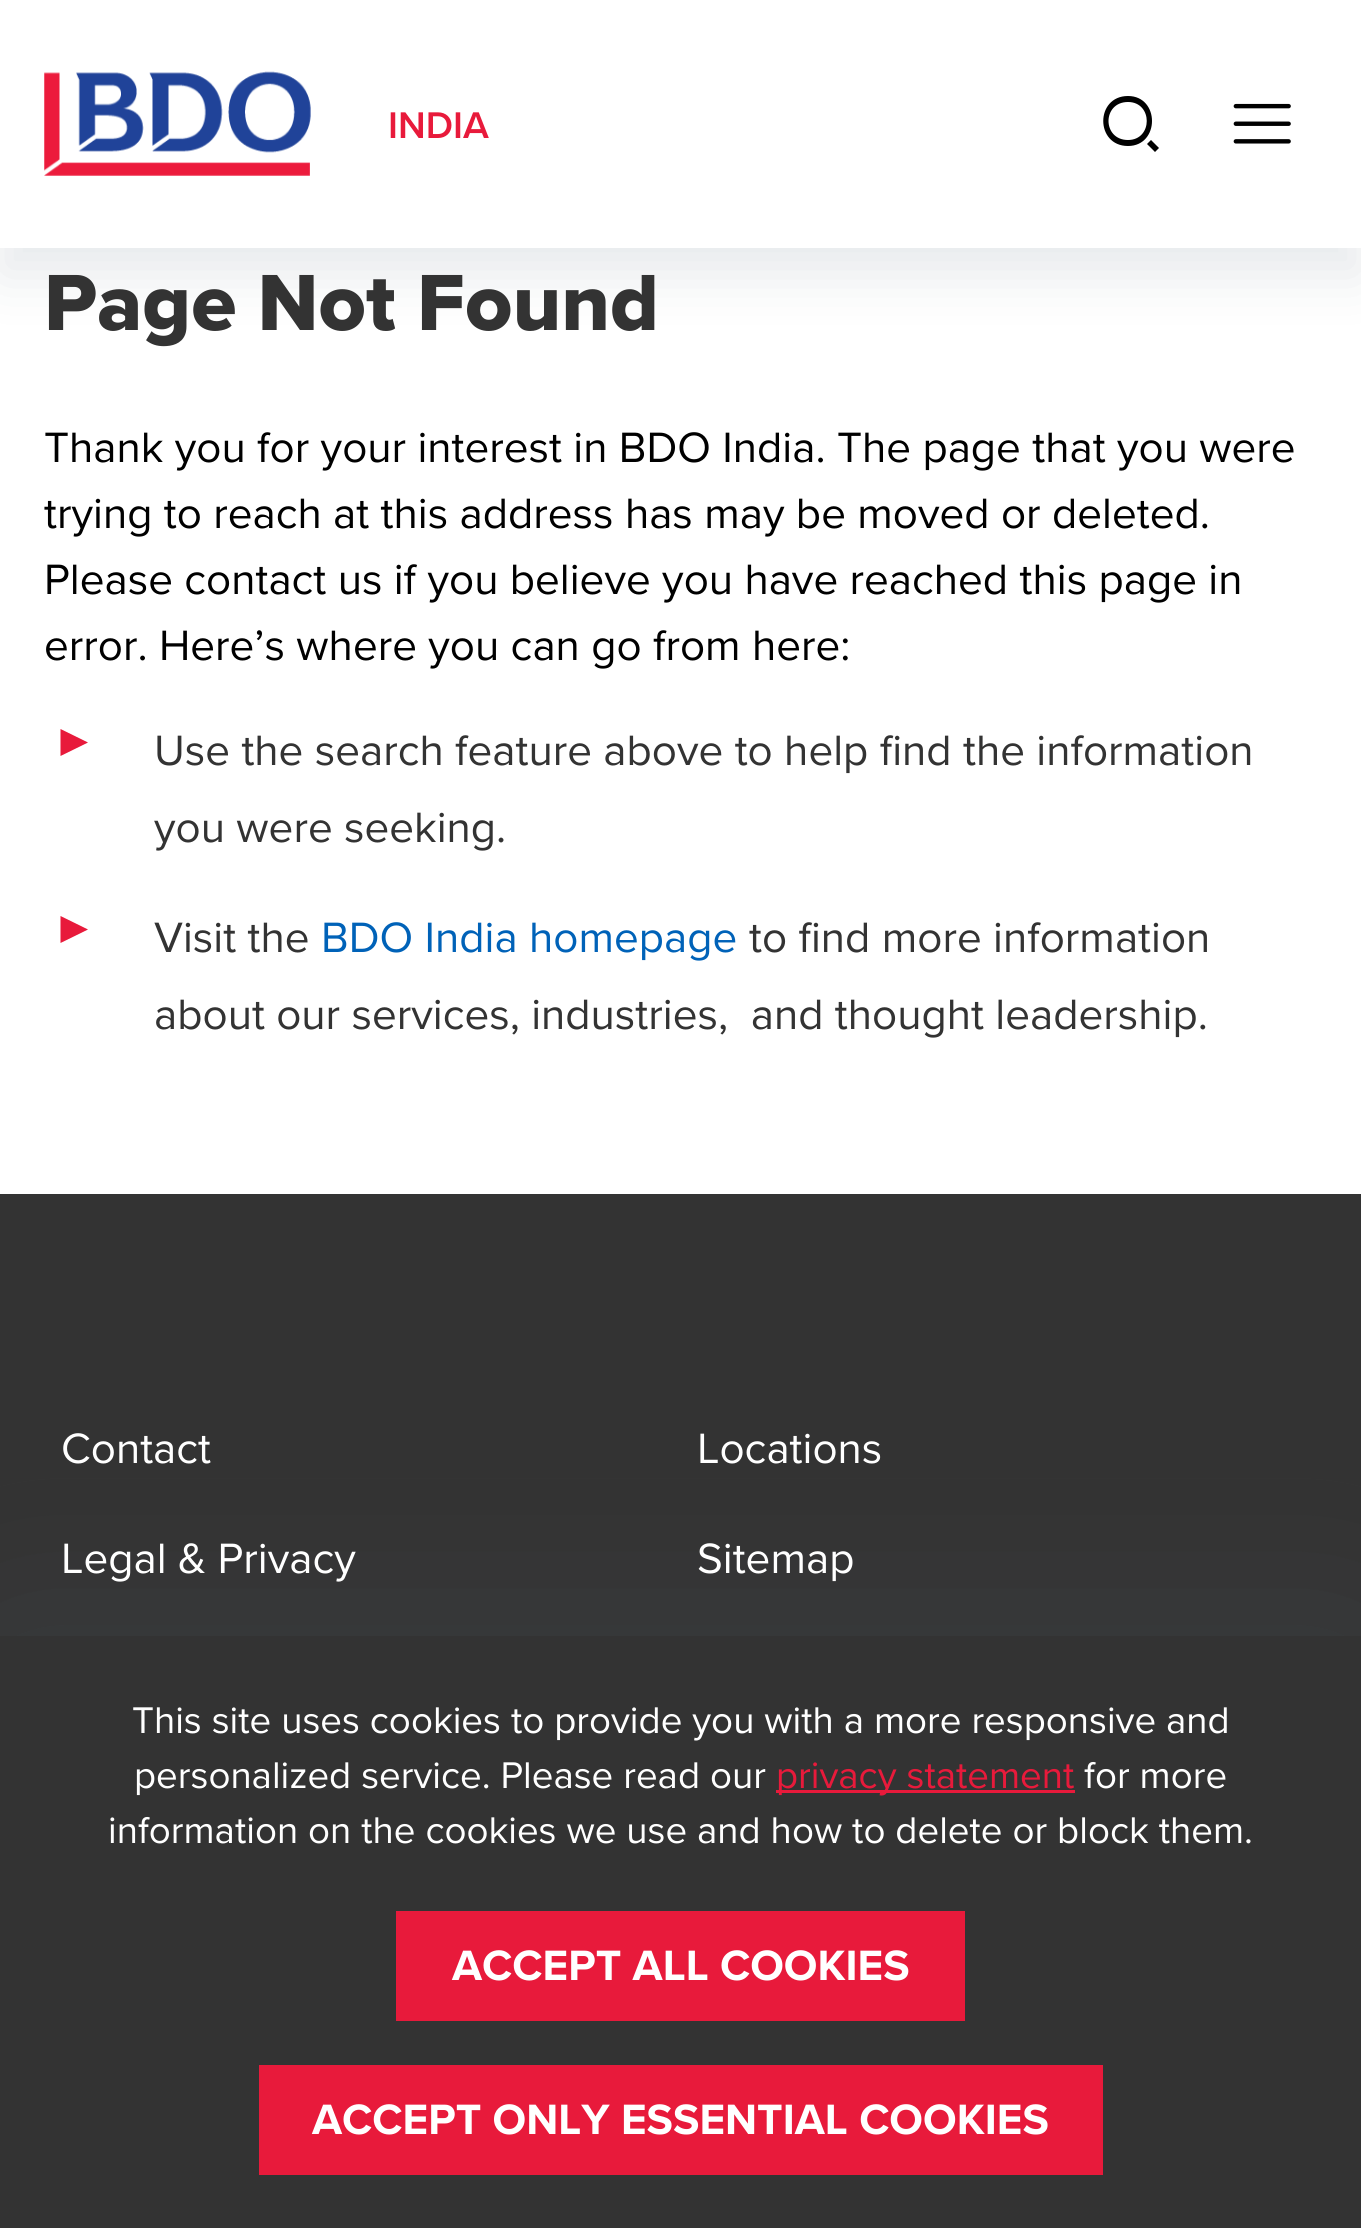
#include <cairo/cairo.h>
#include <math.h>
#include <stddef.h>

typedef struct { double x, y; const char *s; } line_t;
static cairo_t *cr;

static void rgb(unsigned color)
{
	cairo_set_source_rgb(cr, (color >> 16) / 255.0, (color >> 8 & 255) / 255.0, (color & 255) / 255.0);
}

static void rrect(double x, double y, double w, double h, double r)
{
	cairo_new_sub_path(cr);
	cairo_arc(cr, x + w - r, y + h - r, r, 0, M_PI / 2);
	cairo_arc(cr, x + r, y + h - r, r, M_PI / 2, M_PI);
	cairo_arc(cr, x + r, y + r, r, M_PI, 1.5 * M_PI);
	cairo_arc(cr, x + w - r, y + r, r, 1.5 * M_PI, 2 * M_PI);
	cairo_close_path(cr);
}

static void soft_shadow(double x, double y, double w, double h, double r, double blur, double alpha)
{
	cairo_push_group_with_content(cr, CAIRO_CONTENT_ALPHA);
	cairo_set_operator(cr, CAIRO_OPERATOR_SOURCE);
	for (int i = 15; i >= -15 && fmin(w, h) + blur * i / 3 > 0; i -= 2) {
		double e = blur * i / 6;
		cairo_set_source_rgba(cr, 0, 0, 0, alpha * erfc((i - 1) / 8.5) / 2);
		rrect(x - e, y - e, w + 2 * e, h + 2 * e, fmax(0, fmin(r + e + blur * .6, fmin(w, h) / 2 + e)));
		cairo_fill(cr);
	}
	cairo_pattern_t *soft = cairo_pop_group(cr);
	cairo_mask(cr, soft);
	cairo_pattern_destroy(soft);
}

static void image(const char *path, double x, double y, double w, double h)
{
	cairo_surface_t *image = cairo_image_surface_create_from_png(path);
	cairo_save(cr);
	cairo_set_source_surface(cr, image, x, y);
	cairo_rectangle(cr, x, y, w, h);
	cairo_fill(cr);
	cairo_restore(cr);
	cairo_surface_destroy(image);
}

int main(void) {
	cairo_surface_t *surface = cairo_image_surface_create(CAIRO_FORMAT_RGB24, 1361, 2228);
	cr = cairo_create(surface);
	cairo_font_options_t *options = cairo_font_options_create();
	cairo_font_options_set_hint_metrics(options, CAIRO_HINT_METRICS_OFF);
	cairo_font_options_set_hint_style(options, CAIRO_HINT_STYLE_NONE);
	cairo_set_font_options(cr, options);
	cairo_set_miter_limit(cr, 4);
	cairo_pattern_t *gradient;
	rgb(0xffffff);
	cairo_paint(cr);
	cairo_save(cr);
	cairo_set_fill_rule(cr, CAIRO_FILL_RULE_EVEN_ODD);
	cairo_new_path(cr);
	cairo_move_to(cr, 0, 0);
	cairo_line_to(cr, 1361, 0);
	cairo_line_to(cr, 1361, 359);
	cairo_line_to(cr, 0, 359);
	cairo_close_path(cr);
	cairo_move_to(cr, 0, 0);
	cairo_line_to(cr, 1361, 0);
	cairo_line_to(cr, 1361, 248);
	cairo_line_to(cr, 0, 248);
	cairo_close_path(cr);
	cairo_clip(cr);
	rgb(0x5b6e7f);
	soft_shadow(0, 28, 1361, 247, 0, 27.5, 0.15);
	cairo_restore(cr);
	image("img/1.png", 44, 71, 267, 105);
	rgb(0x000000);
	cairo_new_path(cr);
	cairo_move_to(cr, 1128, 96);
	cairo_curve_to(cr, 1160, 96, 1160, 146, 1128, 146);
	cairo_curve_to(cr, 1095, 146, 1095, 96, 1128, 96);
	cairo_close_path(cr);
	cairo_move_to(cr, 1128, 140);
	cairo_curve_to(cr, 1153, 140, 1153, 102, 1128, 102);
	cairo_curve_to(cr, 1102, 102, 1102, 140, 1128, 140);
	cairo_close_path(cr);
	cairo_move_to(cr, 1151, 140);
	cairo_line_to(cr, 1159, 148);
	cairo_line_to(cr, 1155, 152);
	cairo_line_to(cr, 1147, 144);
	cairo_close_path(cr);
	cairo_fill(cr);
	image("img/2.png", 1233, 103, 58, 41);
	rgb(0xe81a3b);
	cairo_new_path(cr);
	cairo_move_to(cr, 60.5, 756);
	cairo_line_to(cr, 60.5, 729);
	cairo_line_to(cr, 88, 742.5);
	cairo_close_path(cr);
	cairo_fill(cr);
	cairo_new_path(cr);
	cairo_move_to(cr, 60.5, 943);
	cairo_line_to(cr, 60.5, 916);
	cairo_line_to(cr, 88, 929.5);
	cairo_close_path(cr);
	cairo_fill(cr);
	rgb(0x333333);
	cairo_rectangle(cr, 0, 1194, 1361, 442);
	cairo_fill(cr);
	rgb(0x5b6e7f);
	soft_shadow(0, 1680, 1361, 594, 0, 110, 0.25);
	rgb(0x333333);
	cairo_rectangle(cr, 0, 1636, 1361, 592);
	cairo_fill(cr);
	rgb(0xe81a3b);
	cairo_rectangle(cr, 776, 1790, 299, 3);
	cairo_fill(cr);
	gradient = cairo_pattern_create_linear(-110, 1561, 561, 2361);
	cairo_pattern_add_color_stop_rgba(gradient, 0.5, 0.357, 0.431, 0.498, 1);
	cairo_pattern_add_color_stop_rgba(gradient, 0.5, 0.91, 0.102, 0.231, 1);
	cairo_set_source(cr, gradient);
	cairo_pattern_destroy(gradient);
	cairo_rectangle(cr, 396, 1911, 569, 110);
	cairo_fill(cr);
	gradient = cairo_pattern_create_linear(-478, 1539, 488, 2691);
	cairo_pattern_add_color_stop_rgba(gradient, 0.5, 0.357, 0.431, 0.498, 1);
	cairo_pattern_add_color_stop_rgba(gradient, 0.5, 0.91, 0.102, 0.231, 1);
	cairo_set_source(cr, gradient);
	cairo_pattern_destroy(gradient);
	cairo_rectangle(cr, 259, 2065, 844, 110);
	cairo_fill(cr);
	cairo_select_font_face(cr, "Proxima Nova SemiBold", CAIRO_FONT_SLANT_NORMAL, CAIRO_FONT_WEIGHT_NORMAL);
	cairo_set_font_size(cr, 38.5);
	rgb(0xe81a3b);
	cairo_move_to(cr, 388, 138);
	cairo_show_text(cr, "INDIA");
	cairo_select_font_face(cr, "Proxima Nova ExtraBold", CAIRO_FONT_SLANT_NORMAL, CAIRO_FONT_WEIGHT_NORMAL);
	cairo_set_font_size(cr, 82.5);
	rgb(0x333333);
	cairo_move_to(cr, 44, 330);
	cairo_show_text(cr, "Page Not Found");
	cairo_select_font_face(cr, "Proxima Nova", CAIRO_FONT_SLANT_NORMAL, CAIRO_FONT_WEIGHT_NORMAL);
	cairo_set_font_size(cr, 44);
	rgb(0x000000);
	{
		static const line_t items[] = {
			{44, 462, "Thank you for your interest in BDO India. The page that you were"},
			{44, 528, "trying to reach at this address has may be moved or deleted."},
			{44, 594, "Please contact us if you believe you have reached this page in"},
			{44, 660, "error. Here’s where you can go from here:"},
		};
		for (size_t i = 0; i < sizeof items / sizeof *items; i++) {
			cairo_move_to(cr, items[i].x, items[i].y);
			cairo_show_text(cr, items[i].s);
		}
	}
	rgb(0x333333);
	{
		static const line_t items[] = {
			{154, 765, "Use the search feature above to help find the information"},
			{154, 842, "you were seeking."},
			{154, 952, "Visit the"},
		};
		for (size_t i = 0; i < sizeof items / sizeof *items; i++) {
			cairo_move_to(cr, items[i].x, items[i].y);
			cairo_show_text(cr, items[i].s);
		}
	}
	rgb(0x0062b8);
	cairo_move_to(cr, 321, 952);
	cairo_show_text(cr, "BDO India homepage");
	rgb(0x333333);
	cairo_move_to(cr, 749, 952);
	cairo_show_text(cr, "to find more information");
	cairo_move_to(cr, 154, 1029);
	cairo_show_text(cr, "about our services, industries,  and thought leadership.");
	rgb(0xffffff);
	{
		static const line_t items[] = {
			{61, 1463, "Contact"},
			{697, 1463, "Locations"},
			{61, 1573, "Legal & Privacy"},
			{697, 1573, "Sitemap"},
		};
		for (size_t i = 0; i < sizeof items / sizeof *items; i++) {
			cairo_move_to(cr, items[i].x, items[i].y);
			cairo_show_text(cr, items[i].s);
		}
	}
	cairo_set_font_size(cr, 38.5);
	cairo_move_to(cr, 132, 1733);
	cairo_show_text(cr, "This site uses cookies to provide you with a more responsive and");
	cairo_move_to(cr, 134, 1788);
	cairo_show_text(cr, "personalized service. Please read our");
	rgb(0xe81a3b);
	cairo_move_to(cr, 776, 1788);
	cairo_show_text(cr, "privacy statement");
	rgb(0xffffff);
	cairo_move_to(cr, 1084, 1788);
	cairo_show_text(cr, "for more");
	cairo_move_to(cr, 108, 1843);
	cairo_show_text(cr, "information on the cookies we use and how to delete or block them.");
	cairo_select_font_face(cr, "Proxima Nova", CAIRO_FONT_SLANT_NORMAL, CAIRO_FONT_WEIGHT_BOLD);
	cairo_set_font_size(cr, 44);
	cairo_move_to(cr, 452, 1980);
	cairo_show_text(cr, "ACCEPT ALL COOKIES");
	cairo_move_to(cr, 312, 2134);
	cairo_show_text(cr, "ACCEPT ONLY ESSENTIAL COOKIES");
	cairo_surface_write_to_png(surface, "page.png");
	cairo_font_options_destroy(options);
	cairo_destroy(cr);
	cairo_surface_destroy(surface);
	return 0;
}
